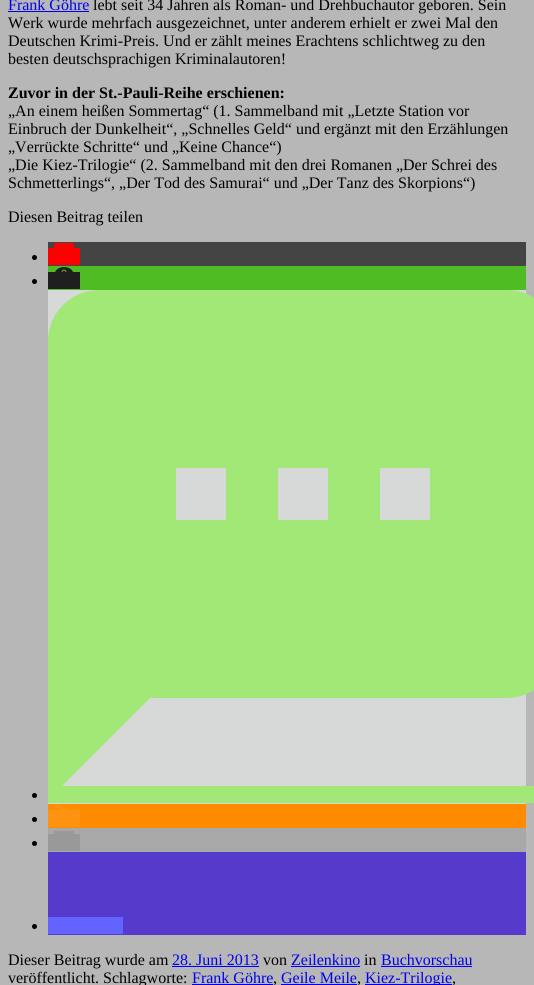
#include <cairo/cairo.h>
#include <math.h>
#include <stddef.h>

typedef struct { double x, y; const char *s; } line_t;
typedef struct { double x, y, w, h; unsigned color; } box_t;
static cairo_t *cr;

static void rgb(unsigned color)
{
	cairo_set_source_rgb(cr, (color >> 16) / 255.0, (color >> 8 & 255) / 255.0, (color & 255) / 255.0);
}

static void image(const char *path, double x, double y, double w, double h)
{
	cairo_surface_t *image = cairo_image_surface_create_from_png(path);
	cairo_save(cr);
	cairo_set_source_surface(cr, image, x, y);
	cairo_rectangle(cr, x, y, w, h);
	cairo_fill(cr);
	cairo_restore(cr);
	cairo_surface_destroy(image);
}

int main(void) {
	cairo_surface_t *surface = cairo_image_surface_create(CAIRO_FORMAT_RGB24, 534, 985);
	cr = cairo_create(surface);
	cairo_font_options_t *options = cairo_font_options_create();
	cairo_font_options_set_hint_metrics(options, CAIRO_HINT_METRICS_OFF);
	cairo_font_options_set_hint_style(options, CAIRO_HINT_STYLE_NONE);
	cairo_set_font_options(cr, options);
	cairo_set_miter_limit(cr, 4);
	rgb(0xb7b7b7);
	cairo_paint(cr);
	{
		static const box_t items[] = {
			{8, 11, 81, 1, 0x0000ee},
			{48, 242, 478, 24, 0x444444},
			{54, 243, 20, 5, 0xff0000},
		};
		for (size_t i = 0; i < sizeof items / sizeof *items; i++) {
			rgb(items[i].color);
			cairo_rectangle(cr, items[i].x, items[i].y, items[i].w, items[i].h);
			cairo_fill(cr);
		}
	}
	rgb(0x000000);
	cairo_arc(cr, 34.5, 257.5, 2.5, 0, 2 * M_PI);
	cairo_fill(cr);
	rgb(0xff0000);
	cairo_rectangle(cr, 48, 248, 32, 17);
	cairo_fill(cr);
	rgb(0x4fbc24);
	cairo_rectangle(cr, 48, 266, 478, 24);
	cairo_fill(cr);
	image("img/1.png", 55, 267, 18, 5);
	rgb(0x000000);
	cairo_arc(cr, 34.5, 281.5, 2.5, 0, 2 * M_PI);
	cairo_fill(cr);
	{
		static const box_t items[] = {
			{48, 272, 32, 17, 0x1f1f1f},
			{48, 290, 478, 514, 0xd7d9d8},
			{48, 786, 486, 17, 0xa1e877},
		};
		for (size_t i = 0; i < sizeof items / sizeof *items; i++) {
			rgb(items[i].color);
			cairo_rectangle(cr, items[i].x, items[i].y, items[i].w, items[i].h);
			cairo_fill(cr);
		}
	}
	cairo_new_path(cr);
	cairo_move_to(cr, 507, 290);
	cairo_line_to(cr, 99, 290);
	cairo_curve_to(cr, 71, 290, 48, 313, 48, 341);
	cairo_line_to(cr, 48, 800);
	cairo_line_to(cr, 150, 698);
	cairo_line_to(cr, 507, 698);
	cairo_curve_to(cr, 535, 698, 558, 675, 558, 647);
	cairo_line_to(cr, 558, 341);
	cairo_curve_to(cr, 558, 313, 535, 290, 507, 290);
	cairo_close_path(cr);
	cairo_move_to(cr, 226, 520);
	cairo_line_to(cr, 176, 520);
	cairo_line_to(cr, 176, 468);
	cairo_line_to(cr, 226, 468);
	cairo_close_path(cr);
	cairo_move_to(cr, 328, 520);
	cairo_line_to(cr, 278, 520);
	cairo_line_to(cr, 278, 468);
	cairo_line_to(cr, 328, 468);
	cairo_close_path(cr);
	cairo_move_to(cr, 430, 520);
	cairo_line_to(cr, 380, 520);
	cairo_line_to(cr, 380, 468);
	cairo_line_to(cr, 430, 468);
	cairo_close_path(cr);
	cairo_fill(cr);
	rgb(0x000000);
	cairo_arc(cr, 34.5, 795.5, 2.5, 0, 2 * M_PI);
	cairo_fill(cr);
	rgb(0xff8c00);
	cairo_rectangle(cr, 48, 804, 478, 24);
	cairo_fill(cr);
	image("img/2.png", 54, 804, 14, 6);
	rgb(0x000000);
	cairo_arc(cr, 34.5, 819.5, 2.5, 0, 2 * M_PI);
	cairo_fill(cr);
	{
		static const box_t items[] = {
			{48, 810, 32, 17, 0xfe9312},
			{48, 828, 478, 24, 0xa8a8a8},
			{54, 831, 20, 3, 0x999999},
		};
		for (size_t i = 0; i < sizeof items / sizeof *items; i++) {
			rgb(items[i].color);
			cairo_rectangle(cr, items[i].x, items[i].y, items[i].w, items[i].h);
			cairo_fill(cr);
		}
	}
	rgb(0x000000);
	cairo_arc(cr, 34.5, 843.5, 2.5, 0, 2 * M_PI);
	cairo_fill(cr);
	rgb(0x999999);
	cairo_rectangle(cr, 48, 834, 32, 17);
	cairo_fill(cr);
	rgb(0x563acc);
	cairo_rectangle(cr, 48, 852, 478, 83);
	cairo_fill(cr);
	rgb(0x000000);
	cairo_arc(cr, 34.5, 926.5, 2.5, 0, 2 * M_PI);
	cairo_fill(cr);
	{
		static const box_t items[] = {
			{48, 917, 75, 17, 0x6364ff},
			{172, 966, 87, 1, 0x0000ee},
			{291, 966, 69, 1, 0x0000ee},
			{381, 966, 91, 1, 0x0000ee},
			{192, 984, 81, 1, 0x0000ee},
			{281, 984, 76, 1, 0x0000ee},
			{365, 984, 87, 1, 0x0000ee},
		};
		for (size_t i = 0; i < sizeof items / sizeof *items; i++) {
			rgb(items[i].color);
			cairo_rectangle(cr, items[i].x, items[i].y, items[i].w, items[i].h);
			cairo_fill(cr);
		}
	}
	cairo_select_font_face(cr, "Liberation Serif", CAIRO_FONT_SLANT_NORMAL, CAIRO_FONT_WEIGHT_NORMAL);
	cairo_set_font_size(cr, 16);
	cairo_move_to(cr, 8, 10);
	cairo_show_text(cr, "Frank Göhre");
	rgb(0x000000);
	{
		static const line_t items[] = {
			{93, 10, "lebt seit 34 Jahren als Roman- und Drehbuchautor geboren. Sein"},
			{8, 28, "Werk wurde mehrfach ausgezeichnet, unter anderem erhielt er zwei Mal den"},
			{8, 46, "Deutschen Krimi-Preis. Und er zählt meines Erachtens schlichtweg zu den"},
			{8, 64, "besten deutschsprachigen Kriminalautoren!"},
		};
		for (size_t i = 0; i < sizeof items / sizeof *items; i++) {
			cairo_move_to(cr, items[i].x, items[i].y);
			cairo_show_text(cr, items[i].s);
		}
	}
	cairo_select_font_face(cr, "Liberation Serif", CAIRO_FONT_SLANT_NORMAL, CAIRO_FONT_WEIGHT_BOLD);
	cairo_move_to(cr, 8, 98);
	cairo_show_text(cr, "Zuvor in der St.-Pauli-Reihe erschienen:");
	cairo_select_font_face(cr, "Liberation Serif", CAIRO_FONT_SLANT_NORMAL, CAIRO_FONT_WEIGHT_NORMAL);
	{
		static const line_t items[] = {
			{8, 116, "„An einem heißen Sommertag“ (1. Sammelband mit „Letzte Station vor"},
			{8, 134, "Einbruch der Dunkelheit“, „Schnelles Geld“ und ergänzt mit den Erzählungen"},
			{8, 152, "„Verrückte Schritte“ und „Keine Chance“)"},
			{8, 170, "„Die Kiez-Trilogie“ (2. Sammelband mit den drei Romanen „Der Schrei des"},
			{8, 188, "Schmetterlings“, „Der Tod des Samurai“ und „Der Tanz des Skorpions“)"},
			{8, 222, "Diesen Beitrag teilen"},
			{8, 965, "Dieser Beitrag wurde am"},
		};
		for (size_t i = 0; i < sizeof items / sizeof *items; i++) {
			cairo_move_to(cr, items[i].x, items[i].y);
			cairo_show_text(cr, items[i].s);
		}
	}
	rgb(0x0000ee);
	cairo_move_to(cr, 172, 965);
	cairo_show_text(cr, "28. Juni 2013");
	rgb(0x000000);
	cairo_move_to(cr, 263, 965);
	cairo_show_text(cr, "von");
	rgb(0x0000ee);
	cairo_move_to(cr, 291, 965);
	cairo_show_text(cr, "Zeilenkino");
	rgb(0x000000);
	cairo_move_to(cr, 364, 965);
	cairo_show_text(cr, "in");
	rgb(0x0000ee);
	cairo_move_to(cr, 381, 965);
	cairo_show_text(cr, "Buchvorschau");
	rgb(0x000000);
	cairo_move_to(cr, 8, 983);
	cairo_show_text(cr, "veröffentlicht. Schlagworte:");
	rgb(0x0000ee);
	cairo_move_to(cr, 192, 983);
	cairo_show_text(cr, "Frank Göhre");
	rgb(0x000000);
	cairo_move_to(cr, 273, 983);
	cairo_show_text(cr, ",");
	rgb(0x0000ee);
	cairo_move_to(cr, 281, 983);
	cairo_show_text(cr, "Geile Meile");
	rgb(0x000000);
	cairo_move_to(cr, 357, 983);
	cairo_show_text(cr, ",");
	rgb(0x0000ee);
	cairo_move_to(cr, 365, 983);
	cairo_show_text(cr, "Kiez-Trilogie");
	rgb(0x000000);
	cairo_move_to(cr, 452, 983);
	cairo_show_text(cr, ",");
	cairo_surface_write_to_png(surface, "page.png");
	cairo_font_options_destroy(options);
	cairo_destroy(cr);
	cairo_surface_destroy(surface);
	return 0;
}
